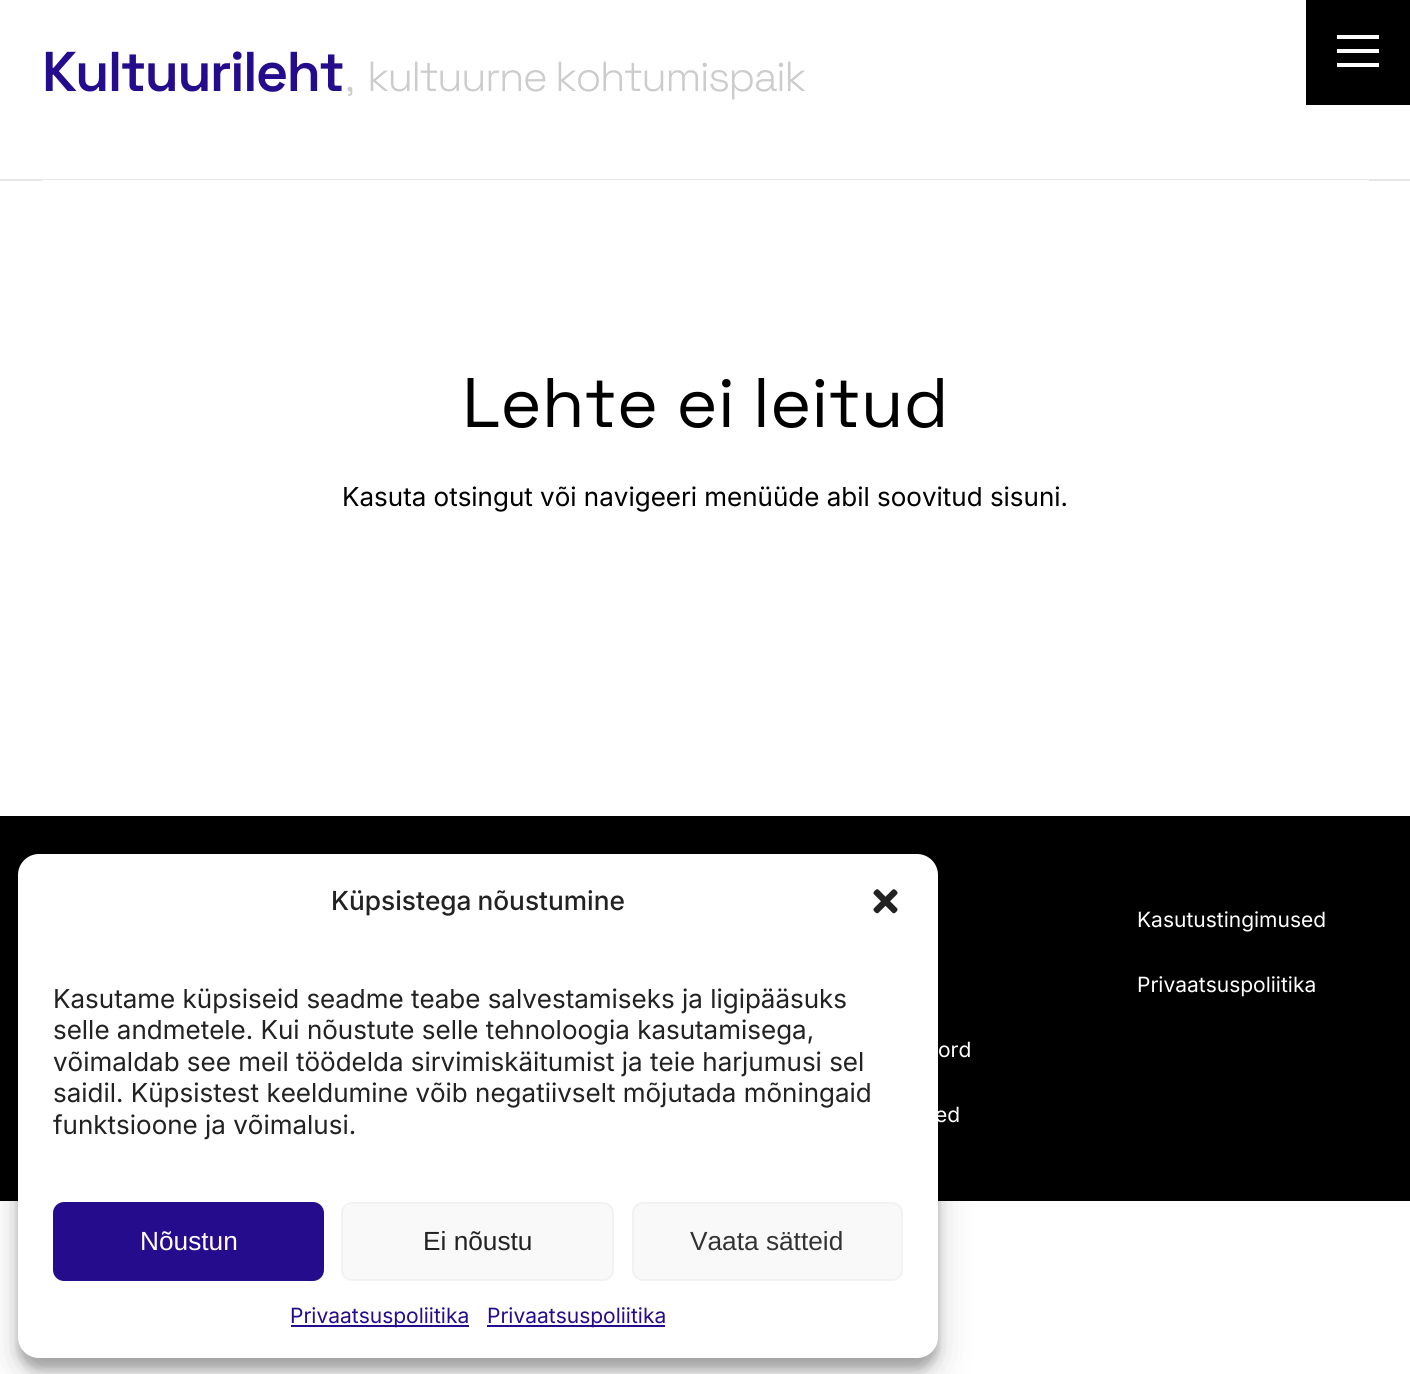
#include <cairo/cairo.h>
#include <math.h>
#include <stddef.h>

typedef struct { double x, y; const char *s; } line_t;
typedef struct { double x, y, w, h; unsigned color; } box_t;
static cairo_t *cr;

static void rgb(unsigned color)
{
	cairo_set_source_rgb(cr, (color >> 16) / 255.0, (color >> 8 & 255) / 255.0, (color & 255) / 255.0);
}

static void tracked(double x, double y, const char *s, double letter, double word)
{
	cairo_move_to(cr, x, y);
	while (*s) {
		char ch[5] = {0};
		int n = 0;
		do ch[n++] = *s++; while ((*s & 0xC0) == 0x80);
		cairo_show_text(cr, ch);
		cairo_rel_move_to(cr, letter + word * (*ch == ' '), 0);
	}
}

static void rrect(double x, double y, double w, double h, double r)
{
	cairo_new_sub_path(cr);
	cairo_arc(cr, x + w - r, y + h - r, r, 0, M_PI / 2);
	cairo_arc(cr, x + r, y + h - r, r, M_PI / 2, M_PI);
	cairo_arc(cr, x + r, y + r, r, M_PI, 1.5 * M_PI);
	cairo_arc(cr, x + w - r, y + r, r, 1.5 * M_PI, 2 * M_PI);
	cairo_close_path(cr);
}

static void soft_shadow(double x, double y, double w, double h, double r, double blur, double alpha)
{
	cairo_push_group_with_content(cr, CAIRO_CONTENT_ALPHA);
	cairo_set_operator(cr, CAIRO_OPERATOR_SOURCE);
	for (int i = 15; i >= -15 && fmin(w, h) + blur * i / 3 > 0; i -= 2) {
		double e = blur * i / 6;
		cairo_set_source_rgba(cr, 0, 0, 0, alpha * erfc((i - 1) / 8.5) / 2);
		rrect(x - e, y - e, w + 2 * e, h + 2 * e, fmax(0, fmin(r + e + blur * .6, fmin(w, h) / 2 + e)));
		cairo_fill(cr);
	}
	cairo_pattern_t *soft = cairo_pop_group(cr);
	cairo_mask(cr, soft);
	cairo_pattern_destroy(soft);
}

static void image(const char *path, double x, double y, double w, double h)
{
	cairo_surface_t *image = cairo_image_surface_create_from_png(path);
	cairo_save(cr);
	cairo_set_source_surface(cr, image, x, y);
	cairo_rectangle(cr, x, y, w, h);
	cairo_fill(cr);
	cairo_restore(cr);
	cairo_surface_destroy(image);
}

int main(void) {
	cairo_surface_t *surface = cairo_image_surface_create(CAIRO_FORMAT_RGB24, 1410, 1374);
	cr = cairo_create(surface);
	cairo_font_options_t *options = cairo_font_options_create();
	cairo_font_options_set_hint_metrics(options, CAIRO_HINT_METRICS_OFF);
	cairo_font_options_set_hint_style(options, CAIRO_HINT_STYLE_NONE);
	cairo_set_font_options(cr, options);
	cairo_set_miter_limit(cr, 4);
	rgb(0xffffff);
	cairo_paint(cr);
	{
		static const box_t items[] = {
			{0, 179, 1410, 2, 0xe6e6e6},
			{42, 180, 1327, 1, 0xffffff},
			{0, 816, 1410, 385, 0x000000},
			{1306, 0, 104, 105, 0x000000},
			{1337, 35, 42, 4, 0xffffff},
			{1337, 49, 42, 4, 0xffffff},
			{1337, 63, 42, 4, 0xffffff},
		};
		for (size_t i = 0; i < sizeof items / sizeof *items; i++) {
			rgb(items[i].color);
			cairo_rectangle(cr, items[i].x, items[i].y, items[i].w, items[i].h);
			cairo_fill(cr);
		}
	}
	rgb(0x000000);
	soft_shadow(18, 865, 920, 504, 21, 5, 0.23);
	soft_shadow(18, 872, 920, 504, 21, 17.5, 0.19);
	rgb(0xffffff);
	rrect(18, 854, 920, 504, 21);
	cairo_fill(cr);
	image("img/1.png", 873, 889, 25, 25);
	rgb(0x250c8c);
	rrect(54, 1203, 269, 77, 10);
	cairo_fill_preserve(cr);
	cairo_stroke(cr);
	rgb(0xf9f9f9);
	rrect(342, 1203, 271, 77, 10);
	cairo_fill_preserve(cr);
	rgb(0xf2f2f2);
	cairo_stroke(cr);
	rgb(0xf9f9f9);
	rrect(633, 1203, 269, 77, 10);
	cairo_fill_preserve(cr);
	rgb(0xf2f2f2);
	cairo_stroke(cr);
	rgb(0x250c8c);
	cairo_rectangle(cr, 291, 1325, 178, 2);
	cairo_fill(cr);
	cairo_rectangle(cr, 487, 1325, 178, 2);
	cairo_fill(cr);
	cairo_select_font_face(cr, "Space Grotesk SemiBold", CAIRO_FONT_SLANT_NORMAL, CAIRO_FONT_WEIGHT_NORMAL);
	cairo_set_font_size(cr, 56);
	tracked(42, 91, "Kultuurileht", -1.75, 0);
	cairo_select_font_face(cr, "Space Grotesk Light", CAIRO_FONT_SLANT_NORMAL, CAIRO_FONT_WEIGHT_NORMAL);
	cairo_set_font_size(cr, 42);
	rgb(0xcccccc);
	tracked(345, 91, ",", -1.75, 0);
	tracked(367, 91, "kultuurne kohtumispaik", -1.75, 0);
	cairo_select_font_face(cr, "Space Grotesk", CAIRO_FONT_SLANT_NORMAL, CAIRO_FONT_WEIGHT_NORMAL);
	cairo_set_font_size(cr, 70);
	rgb(0x000000);
	cairo_move_to(cr, 462, 427);
	cairo_show_text(cr, "Lehte ei leitud");
	cairo_select_font_face(cr, "Inter", CAIRO_FONT_SLANT_NORMAL, CAIRO_FONT_WEIGHT_NORMAL);
	cairo_set_font_size(cr, 26.1);
	cairo_move_to(cr, 342, 506);
	cairo_show_text(cr, "Kasuta otsingut või navigeeri menüüde abil soovitud sisuni.");
	cairo_select_font_face(cr, "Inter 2", CAIRO_FONT_SLANT_NORMAL, CAIRO_FONT_WEIGHT_NORMAL);
	cairo_set_font_size(cr, 21);
	rgb(0xffffff);
	{
		static const line_t items[] = {
			{1137, 927, "Kasutustingimused"},
			{1137, 992, "Privaatsuspoliitika"},
			{938, 1057, "ord"},
			{935, 1122, "ed"},
		};
		for (size_t i = 0; i < sizeof items / sizeof *items; i++) {
			cairo_move_to(cr, items[i].x, items[i].y);
			cairo_show_text(cr, items[i].s);
		}
	}
	cairo_select_font_face(cr, "Inter Medium", CAIRO_FONT_SLANT_NORMAL, CAIRO_FONT_WEIGHT_NORMAL);
	cairo_set_font_size(cr, 26.25);
	rgb(0x222222);
	tracked(331, 910, "Küpsistega nõustumine", 0, -1);
	cairo_select_font_face(cr, "Inter", CAIRO_FONT_SLANT_NORMAL, CAIRO_FONT_WEIGHT_NORMAL);
	cairo_set_font_size(cr, 26.1);
	{
		static const line_t items[] = {
			{53, 1008, "Kasutame küpsiseid seadme teabe salvestamiseks ja ligipääsuks"},
			{53, 1039, "selle andmetele. Kui nõustute selle tehnoloogia kasutamisega,"},
			{53, 1071, "võimaldab see meil töödelda sirvimiskäitumist ja teie harjumusi sel"},
			{53, 1102, "saidil. Küpsistest keeldumine võib negatiivselt mõjutada mõningaid"},
			{53, 1134, "funktsioone ja võimalusi."},
		};
		for (size_t i = 0; i < sizeof items / sizeof *items; i++) {
			cairo_move_to(cr, items[i].x, items[i].y);
			cairo_show_text(cr, items[i].s);
		}
	}
	cairo_select_font_face(cr, "Liberation Sans", CAIRO_FONT_SLANT_NORMAL, CAIRO_FONT_WEIGHT_NORMAL);
	cairo_set_font_size(cr, 26.25);
	rgb(0xffffff);
	cairo_move_to(cr, 140, 1250);
	cairo_show_text(cr, "Nõustun");
	rgb(0x222222);
	cairo_move_to(cr, 423, 1250);
	cairo_show_text(cr, "Ei nõustu");
	rgb(0x333333);
	cairo_move_to(cr, 690, 1250);
	cairo_show_text(cr, "Vaata sätteid");
	cairo_select_font_face(cr, "Inter 2", CAIRO_FONT_SLANT_NORMAL, CAIRO_FONT_WEIGHT_NORMAL);
	cairo_set_font_size(cr, 21);
	rgb(0x250c8c);
	cairo_move_to(cr, 290, 1323);
	cairo_show_text(cr, "Privaatsuspoliitika");
	cairo_move_to(cr, 487, 1323);
	cairo_show_text(cr, "Privaatsuspoliitika");
	cairo_surface_write_to_png(surface, "page.png");
	cairo_font_options_destroy(options);
	cairo_destroy(cr);
	cairo_surface_destroy(surface);
	return 0;
}
